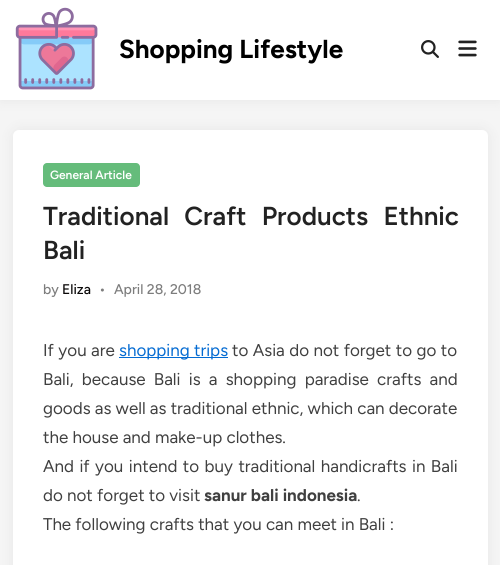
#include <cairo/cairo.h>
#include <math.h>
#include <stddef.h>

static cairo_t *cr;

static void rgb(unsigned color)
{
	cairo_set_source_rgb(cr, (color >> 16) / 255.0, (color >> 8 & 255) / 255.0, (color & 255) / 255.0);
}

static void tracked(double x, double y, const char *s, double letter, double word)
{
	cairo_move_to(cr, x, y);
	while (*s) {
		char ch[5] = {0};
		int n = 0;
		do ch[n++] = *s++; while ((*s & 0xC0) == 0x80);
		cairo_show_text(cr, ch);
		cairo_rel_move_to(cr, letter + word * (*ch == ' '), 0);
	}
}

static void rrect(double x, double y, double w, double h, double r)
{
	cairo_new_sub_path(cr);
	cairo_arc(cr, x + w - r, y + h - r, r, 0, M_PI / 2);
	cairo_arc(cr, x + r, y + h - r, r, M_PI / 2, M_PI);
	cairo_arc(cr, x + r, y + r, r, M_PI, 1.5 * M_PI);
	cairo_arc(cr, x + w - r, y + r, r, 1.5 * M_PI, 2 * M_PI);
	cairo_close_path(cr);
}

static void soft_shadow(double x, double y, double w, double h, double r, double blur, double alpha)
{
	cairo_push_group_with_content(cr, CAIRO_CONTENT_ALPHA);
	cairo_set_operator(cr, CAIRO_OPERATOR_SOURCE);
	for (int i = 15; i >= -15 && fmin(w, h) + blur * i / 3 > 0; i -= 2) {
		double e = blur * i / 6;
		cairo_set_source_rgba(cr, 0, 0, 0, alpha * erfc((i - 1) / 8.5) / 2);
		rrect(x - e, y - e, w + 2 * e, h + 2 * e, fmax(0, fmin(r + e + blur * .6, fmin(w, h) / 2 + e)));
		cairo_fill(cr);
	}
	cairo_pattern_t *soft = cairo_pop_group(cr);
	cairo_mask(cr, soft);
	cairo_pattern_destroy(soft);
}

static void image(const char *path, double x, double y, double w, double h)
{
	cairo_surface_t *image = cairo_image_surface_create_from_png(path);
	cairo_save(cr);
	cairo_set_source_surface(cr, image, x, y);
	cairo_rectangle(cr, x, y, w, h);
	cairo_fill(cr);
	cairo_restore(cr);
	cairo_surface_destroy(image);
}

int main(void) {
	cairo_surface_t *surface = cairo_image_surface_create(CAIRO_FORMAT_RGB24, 500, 565);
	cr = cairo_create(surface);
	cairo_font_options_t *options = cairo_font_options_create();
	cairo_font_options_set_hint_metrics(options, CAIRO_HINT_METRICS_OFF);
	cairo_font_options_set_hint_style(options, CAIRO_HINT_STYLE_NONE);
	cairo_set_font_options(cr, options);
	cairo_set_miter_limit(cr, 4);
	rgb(0xf5f5f5);
	cairo_paint(cr);
	rgb(0x000000);
	soft_shadow(0, 0, 500, 100, 0, 7.5, 0.06);
	rgb(0xffffff);
	cairo_rectangle(cr, 0, 0, 500, 100);
	cairo_fill(cr);
	image("img/1.png", 15, 7, 83, 83);
	image("img/2.png", 421, 40, 18, 18);
	image("img/3.png", 458, 40, 19, 17);
	rgb(0x000000);
	soft_shadow(13, 130, 475, 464, 6, 7.5, 0.06);
	rgb(0xffffff);
	rrect(13, 130, 475, 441, 6);
	cairo_fill(cr);
	rgb(0x65bc7b);
	rrect(43, 163, 97, 24, 4);
	cairo_fill(cr);
	rgb(0x046bd2);
	cairo_rectangle(cr, 119, 357, 109, 1);
	cairo_fill(cr);
	cairo_select_font_face(cr, "Figtree", CAIRO_FONT_SLANT_NORMAL, CAIRO_FONT_WEIGHT_BOLD);
	cairo_set_font_size(cr, 26);
	rgb(0x000000);
	cairo_move_to(cr, 119, 58);
	cairo_show_text(cr, "Shopping Lifestyle");
	cairo_select_font_face(cr, "Figtree SemiBold", CAIRO_FONT_SLANT_NORMAL, CAIRO_FONT_WEIGHT_NORMAL);
	cairo_set_font_size(cr, 12);
	rgb(0xffffff);
	cairo_move_to(cr, 50, 179);
	cairo_show_text(cr, "General Article");
	cairo_set_font_size(cr, 26);
	rgb(0x222222);
	tracked(43, 225, "Traditional Craft Products Ethnic", 0, 9);
	cairo_move_to(cr, 43, 259);
	cairo_show_text(cr, "Bali");
	cairo_select_font_face(cr, "Figtree Medium", CAIRO_FONT_SLANT_NORMAL, CAIRO_FONT_WEIGHT_NORMAL);
	cairo_set_font_size(cr, 14);
	rgb(0x7d7d7d);
	cairo_move_to(cr, 43, 294);
	cairo_show_text(cr, "by");
	rgb(0x0a0808);
	cairo_move_to(cr, 62, 294);
	cairo_show_text(cr, "Eliza");
	rgb(0x7d7d7d);
	cairo_move_to(cr, 99, 294);
	cairo_show_text(cr, "•");
	cairo_move_to(cr, 114, 294);
	cairo_show_text(cr, "April 28, 2018");
	cairo_select_font_face(cr, "Figtree", CAIRO_FONT_SLANT_NORMAL, CAIRO_FONT_WEIGHT_NORMAL);
	cairo_set_font_size(cr, 17);
	rgb(0x404040);
	tracked(43, 356, "If you are", 0, 0.25);
	rgb(0x046bd2);
	cairo_move_to(cr, 119, 356);
	cairo_show_text(cr, "shopping trips");
	rgb(0x404040);
	tracked(232, 356, "to Asia do not forget to go to", 0, 0.25);
	tracked(43, 385, "Bali, because Bali is a shopping paradise crafts and", 0, 4);
	cairo_move_to(cr, 43, 414);
	cairo_show_text(cr, "goods as well as traditional ethnic, which can decorate");
	cairo_move_to(cr, 43, 443);
	cairo_show_text(cr, "the house and make-up clothes.");
	tracked(43, 472, "And if you intend to buy traditional handicrafts in Bali", 0, 1.25);
	cairo_move_to(cr, 43, 501);
	cairo_show_text(cr, "do not forget to visit");
	cairo_select_font_face(cr, "Figtree", CAIRO_FONT_SLANT_NORMAL, CAIRO_FONT_WEIGHT_BOLD);
	cairo_move_to(cr, 204, 501);
	cairo_show_text(cr, "sanur bali indonesia");
	cairo_select_font_face(cr, "Figtree", CAIRO_FONT_SLANT_NORMAL, CAIRO_FONT_WEIGHT_NORMAL);
	cairo_move_to(cr, 357, 501);
	cairo_show_text(cr, ".");
	cairo_move_to(cr, 43, 530);
	cairo_show_text(cr, "The following crafts that you can meet in Bali :");
	cairo_surface_write_to_png(surface, "page.png");
	cairo_font_options_destroy(options);
	cairo_destroy(cr);
	cairo_surface_destroy(surface);
	return 0;
}
